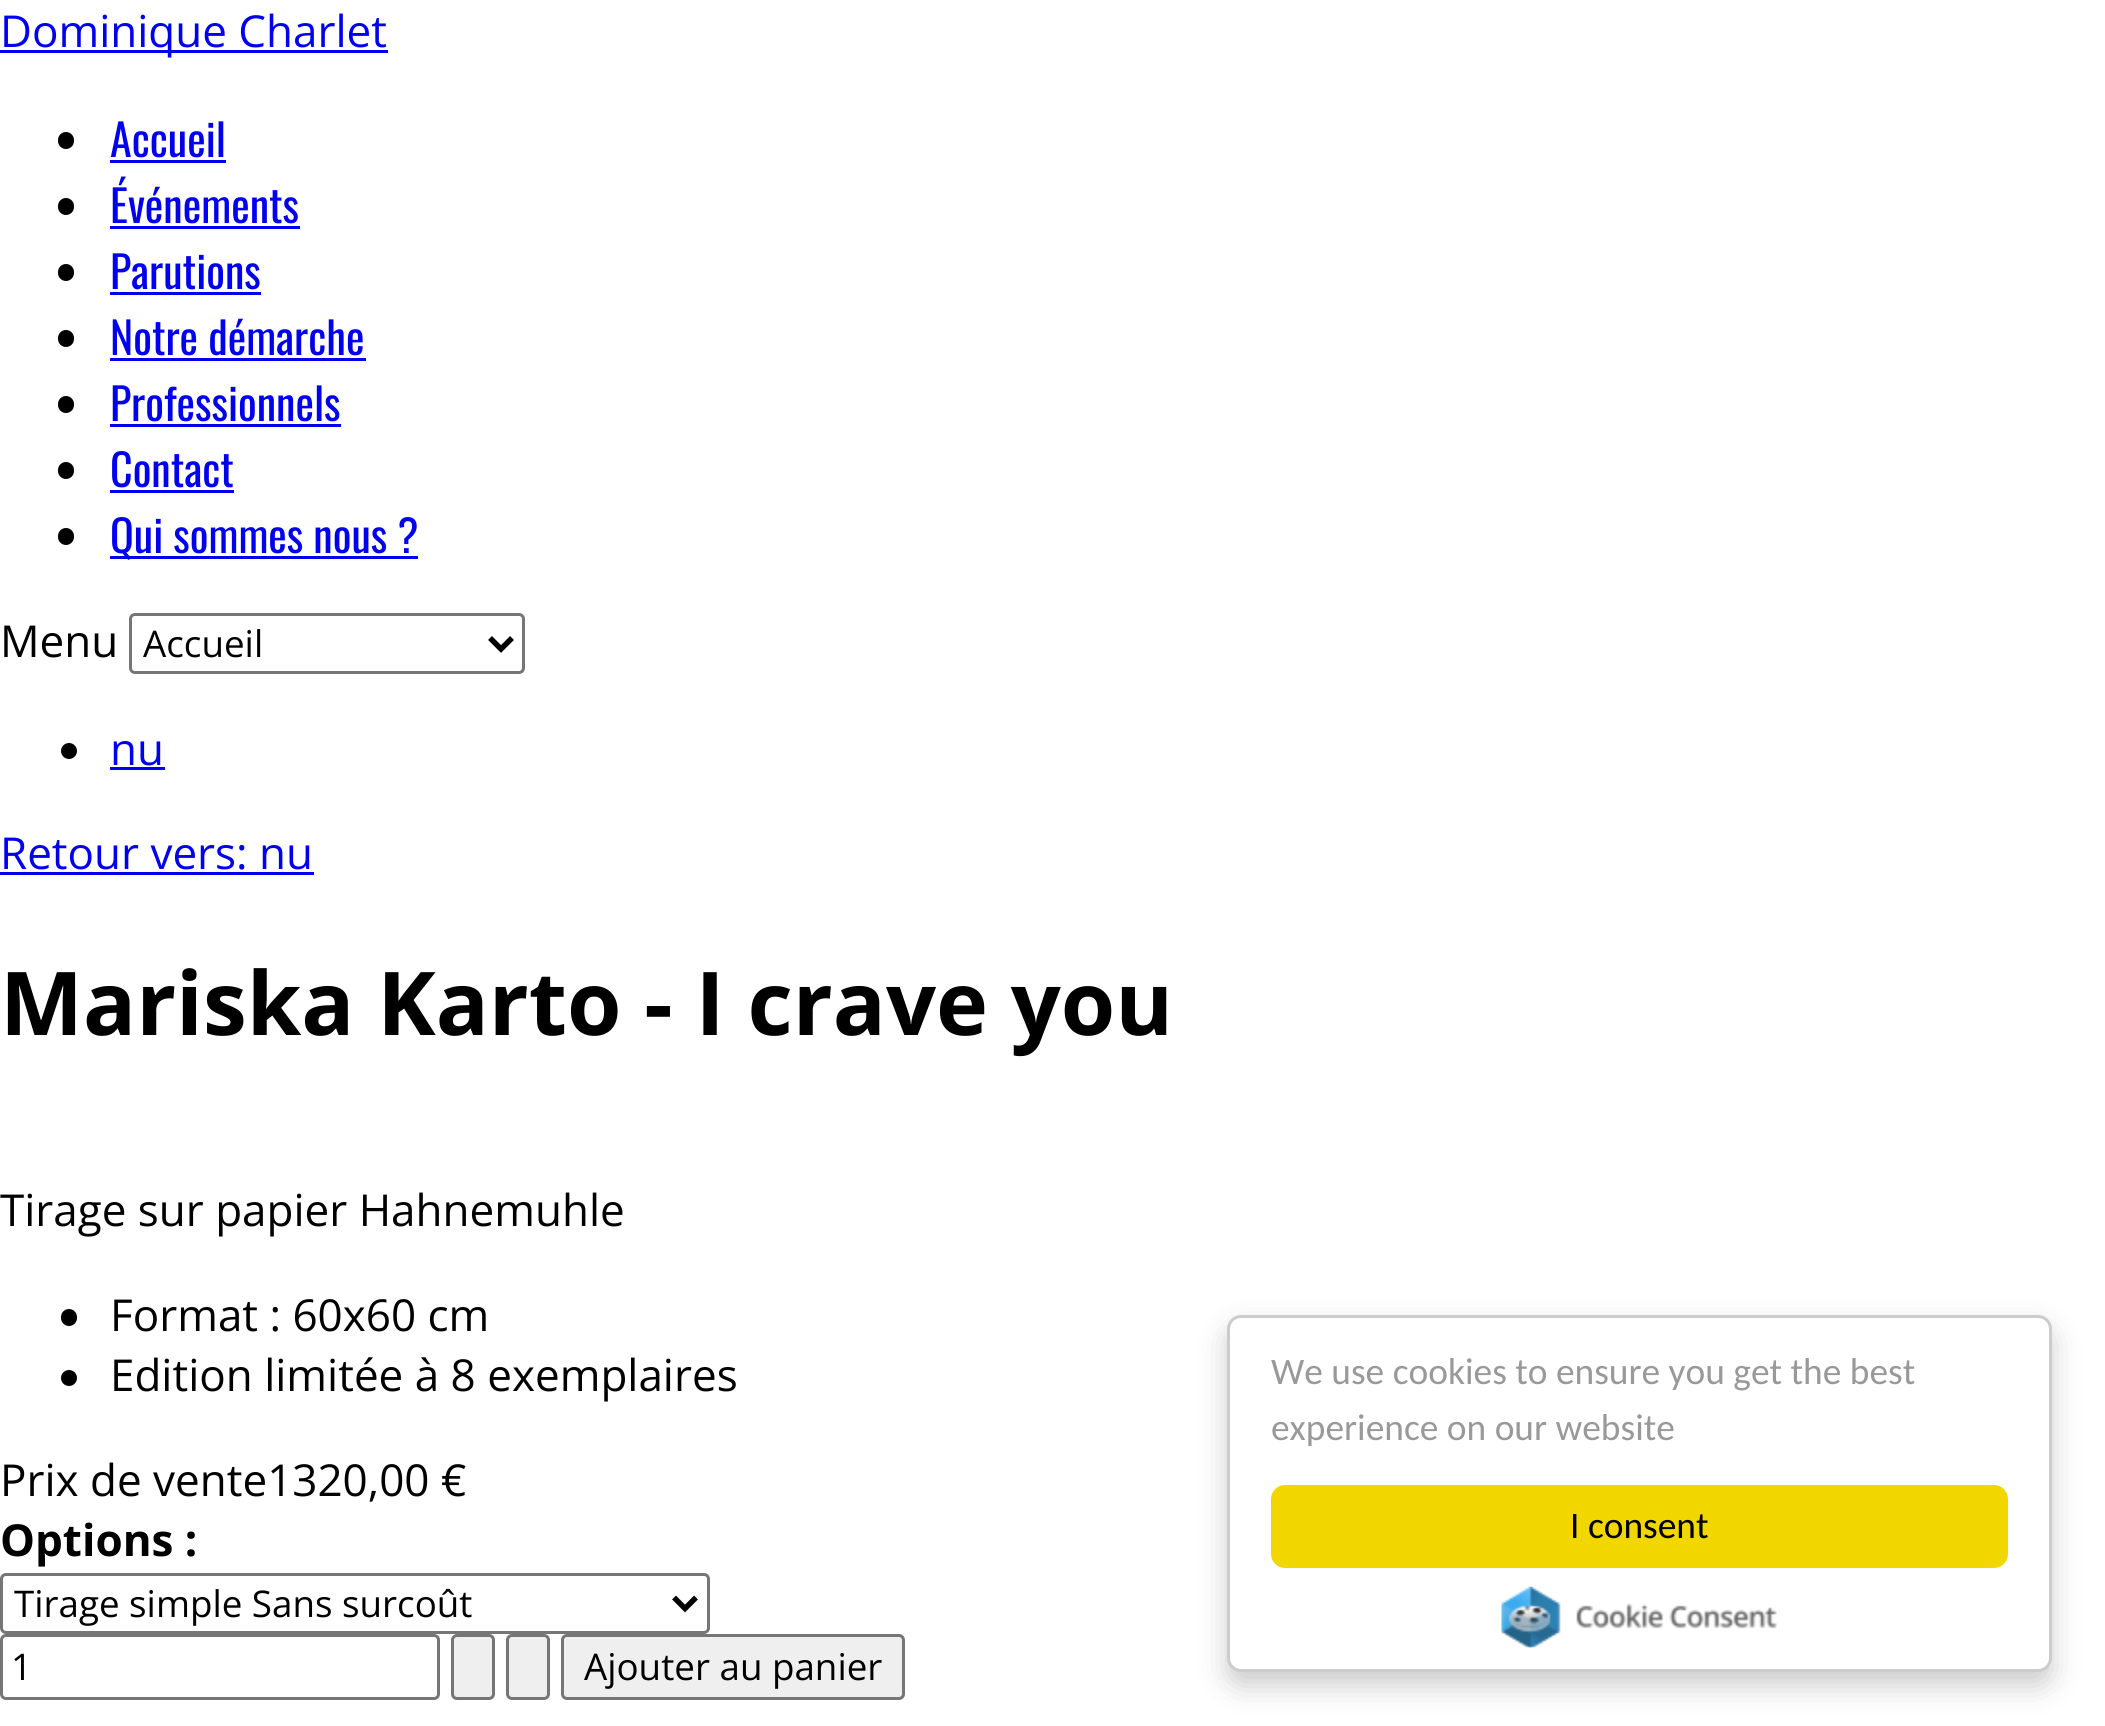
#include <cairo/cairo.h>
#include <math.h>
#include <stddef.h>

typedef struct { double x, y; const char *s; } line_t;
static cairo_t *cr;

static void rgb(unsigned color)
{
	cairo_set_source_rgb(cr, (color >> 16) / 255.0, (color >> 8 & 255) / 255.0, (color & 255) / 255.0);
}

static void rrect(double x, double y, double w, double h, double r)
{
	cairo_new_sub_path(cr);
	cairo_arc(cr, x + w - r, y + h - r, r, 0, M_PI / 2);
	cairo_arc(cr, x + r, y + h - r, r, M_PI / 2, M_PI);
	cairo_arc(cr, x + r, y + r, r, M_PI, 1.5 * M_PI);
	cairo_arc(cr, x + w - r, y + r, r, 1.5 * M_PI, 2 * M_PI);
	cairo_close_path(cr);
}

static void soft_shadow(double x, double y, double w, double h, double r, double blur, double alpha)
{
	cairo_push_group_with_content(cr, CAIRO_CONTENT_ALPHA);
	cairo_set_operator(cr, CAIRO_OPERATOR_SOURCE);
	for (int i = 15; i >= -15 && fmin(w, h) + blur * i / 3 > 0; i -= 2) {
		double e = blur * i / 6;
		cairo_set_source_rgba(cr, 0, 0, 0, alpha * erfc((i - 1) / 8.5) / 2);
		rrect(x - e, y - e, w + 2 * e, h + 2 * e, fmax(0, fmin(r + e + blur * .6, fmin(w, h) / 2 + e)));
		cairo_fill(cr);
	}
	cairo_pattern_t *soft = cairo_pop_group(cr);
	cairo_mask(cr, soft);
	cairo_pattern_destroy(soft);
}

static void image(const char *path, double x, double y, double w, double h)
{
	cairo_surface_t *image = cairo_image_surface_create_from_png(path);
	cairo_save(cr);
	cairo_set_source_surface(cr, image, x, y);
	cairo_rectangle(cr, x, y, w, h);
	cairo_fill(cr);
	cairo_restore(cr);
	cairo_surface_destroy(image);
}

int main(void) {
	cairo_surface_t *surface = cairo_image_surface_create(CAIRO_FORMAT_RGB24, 2105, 1726);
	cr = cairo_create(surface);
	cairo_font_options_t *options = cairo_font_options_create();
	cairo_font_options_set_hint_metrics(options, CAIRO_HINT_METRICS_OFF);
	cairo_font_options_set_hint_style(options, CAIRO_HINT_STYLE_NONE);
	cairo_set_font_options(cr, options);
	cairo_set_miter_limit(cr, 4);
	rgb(0xffffff);
	cairo_paint(cr);
	rgb(0x0000ee);
	cairo_rectangle(cr, 0, 50, 388, 3);
	cairo_fill(cr);
	rgb(0x000000);
	rrect(58, 132, 16, 17, 8);
	cairo_fill(cr);
	rgb(0x0000ee);
	cairo_rectangle(cr, 110, 160, 116, 3);
	cairo_fill(cr);
	rgb(0x000000);
	rrect(58, 198, 16, 17, 8);
	cairo_fill(cr);
	rgb(0x0000ee);
	cairo_rectangle(cr, 110, 226, 190, 3);
	cairo_fill(cr);
	rgb(0x000000);
	rrect(58, 264, 16, 17, 8);
	cairo_fill(cr);
	rgb(0x0000ee);
	cairo_rectangle(cr, 110, 292, 151, 3);
	cairo_fill(cr);
	rgb(0x000000);
	rrect(58, 330, 16, 17, 8);
	cairo_fill(cr);
	rgb(0x0000ee);
	cairo_rectangle(cr, 110, 358, 256, 3);
	cairo_fill(cr);
	rgb(0x000000);
	rrect(58, 396, 16, 17, 8);
	cairo_fill(cr);
	rgb(0x0000ee);
	cairo_rectangle(cr, 110, 424, 231, 3);
	cairo_fill(cr);
	rgb(0x000000);
	rrect(58, 462, 16, 17, 8);
	cairo_fill(cr);
	rgb(0x0000ee);
	cairo_rectangle(cr, 110, 490, 124, 3);
	cairo_fill(cr);
	rgb(0x000000);
	rrect(58, 528, 16, 17, 8);
	cairo_fill(cr);
	rgb(0x0000ee);
	cairo_rectangle(cr, 110, 556, 308, 3);
	cairo_fill(cr);
	rrect(130.5, 614.5, 393, 58, 4.5);
	rgb(0x767676);
	cairo_set_line_width(cr, 3);
	cairo_stroke(cr);
	cairo_new_path(cr);
	cairo_move_to(cr, 490, 638);
	cairo_line_to(cr, 501, 649);
	cairo_line_to(cr, 512, 638);
	rgb(0x000000);
	cairo_set_line_width(cr, 5.5);
	cairo_stroke(cr);
	cairo_arc(cr, 69, 751, 8, 0, 2 * M_PI);
	cairo_fill(cr);
	rgb(0x0000ee);
	cairo_rectangle(cr, 110, 767, 55, 3);
	cairo_fill(cr);
	cairo_rectangle(cr, 0, 872, 314, 3);
	cairo_fill(cr);
	rgb(0x000000);
	rrect(61, 1309, 16, 17, 8);
	cairo_fill(cr);
	cairo_arc(cr, 69, 1378, 8, 0, 2 * M_PI);
	cairo_fill(cr);
	rrect(1.5, 1574.5, 707, 58, 4.5);
	rgb(0x767676);
	cairo_set_line_width(cr, 3);
	cairo_stroke(cr);
	cairo_new_path(cr);
	cairo_move_to(cr, 674, 1597.5);
	cairo_line_to(cr, 685, 1608.5);
	cairo_line_to(cr, 696, 1597.5);
	rgb(0x000000);
	cairo_set_line_width(cr, 5.5);
	cairo_stroke(cr);
	rrect(1.5, 1635.5, 437, 63, 4.5);
	rgb(0x767676);
	cairo_set_line_width(cr, 3);
	cairo_stroke(cr);
	rgb(0xefefef);
	rrect(452.5, 1635.5, 41, 63, 4.5);
	cairo_fill_preserve(cr);
	rgb(0x767676);
	cairo_stroke(cr);
	rgb(0xefefef);
	rrect(507.5, 1635.5, 41, 63, 4.5);
	cairo_fill_preserve(cr);
	rgb(0x767676);
	cairo_stroke(cr);
	rgb(0xefefef);
	rrect(562.5, 1635.5, 341, 63, 4.5);
	cairo_fill_preserve(cr);
	rgb(0x767676);
	cairo_stroke(cr);
	rgb(0x000000);
	soft_shadow(1227, 1328, 825, 358, 14, 14, 0.2);
	rgb(0xffffff);
	rrect(1228.5, 1316.5, 822, 354, 12.5);
	cairo_fill_preserve(cr);
	rgb(0xcccccc);
	cairo_stroke(cr);
	rgb(0xf1d600);
	rrect(1271, 1485, 737, 83, 14);
	cairo_fill(cr);
	image("img/1.png", 1501, 1586, 276, 62);
	cairo_select_font_face(cr, "Open Sans", CAIRO_FONT_SLANT_NORMAL, CAIRO_FONT_WEIGHT_NORMAL);
	cairo_set_font_size(cr, 44);
	rgb(0x0000ee);
	cairo_move_to(cr, 0, 47);
	cairo_show_text(cr, "Dominique Charlet");
	cairo_select_font_face(cr, "Oswald", CAIRO_FONT_SLANT_NORMAL, CAIRO_FONT_WEIGHT_NORMAL);
	{
		static const line_t items[] = {
			{110, 157, "Accueil"},
			{110, 223, "Événements"},
			{110, 289, "Parutions"},
			{110, 355, "Notre démarche"},
			{110, 421, "Professionnels"},
			{110, 487, "Contact"},
			{110, 553, "Qui sommes nous ?"},
		};
		for (size_t i = 0; i < sizeof items / sizeof *items; i++) {
			cairo_move_to(cr, items[i].x, items[i].y);
			cairo_show_text(cr, items[i].s);
		}
	}
	cairo_select_font_face(cr, "Open Sans", CAIRO_FONT_SLANT_NORMAL, CAIRO_FONT_WEIGHT_NORMAL);
	rgb(0x000000);
	cairo_move_to(cr, 0, 657);
	cairo_show_text(cr, "Menu");
	cairo_set_font_size(cr, 36.75);
	cairo_move_to(cr, 143, 657);
	cairo_show_text(cr, "Accueil");
	cairo_set_font_size(cr, 44);
	rgb(0x0000ee);
	cairo_move_to(cr, 110, 765);
	cairo_show_text(cr, "nu");
	cairo_move_to(cr, 0, 869);
	cairo_show_text(cr, "Retour vers: nu");
	cairo_select_font_face(cr, "Open Sans", CAIRO_FONT_SLANT_NORMAL, CAIRO_FONT_WEIGHT_BOLD);
	cairo_set_font_size(cr, 88);
	rgb(0x000000);
	cairo_move_to(cr, 0, 1035);
	cairo_show_text(cr, "Mariska Karto - I crave you");
	cairo_select_font_face(cr, "Open Sans", CAIRO_FONT_SLANT_NORMAL, CAIRO_FONT_WEIGHT_NORMAL);
	cairo_set_font_size(cr, 44);
	{
		static const line_t items[] = {
			{0, 1226, "Tirage sur papier Hahnemuhle"},
			{110, 1331, "Format : 60x60 cm"},
			{110, 1391, "Edition limitée à 8 exemplaires"},
			{0, 1496, "Prix de vente1320,00 €"},
		};
		for (size_t i = 0; i < sizeof items / sizeof *items; i++) {
			cairo_move_to(cr, items[i].x, items[i].y);
			cairo_show_text(cr, items[i].s);
		}
	}
	cairo_select_font_face(cr, "Open Sans", CAIRO_FONT_SLANT_NORMAL, CAIRO_FONT_WEIGHT_BOLD);
	cairo_move_to(cr, 0, 1556);
	cairo_show_text(cr, "Options :");
	cairo_select_font_face(cr, "Open Sans", CAIRO_FONT_SLANT_NORMAL, CAIRO_FONT_WEIGHT_NORMAL);
	cairo_set_font_size(cr, 36.75);
	{
		static const line_t items[] = {
			{14, 1617, "Tirage simple Sans surcoût"},
			{11, 1680, "1"},
			{584, 1680, "Ajouter au panier"},
		};
		for (size_t i = 0; i < sizeof items / sizeof *items; i++) {
			cairo_move_to(cr, items[i].x, items[i].y);
			cairo_show_text(cr, items[i].s);
		}
	}
	cairo_select_font_face(cr, "Carlito", CAIRO_FONT_SLANT_NORMAL, CAIRO_FONT_WEIGHT_NORMAL);
	cairo_set_font_size(cr, 37.4);
	rgb(0x999999);
	cairo_move_to(cr, 1271, 1384);
	cairo_show_text(cr, "We use cookies to ensure you get the best");
	cairo_move_to(cr, 1271, 1440);
	cairo_show_text(cr, "experience on our website");
	rgb(0x000000);
	cairo_move_to(cr, 1570, 1538);
	cairo_show_text(cr, "I consent");
	cairo_surface_write_to_png(surface, "page.png");
	cairo_font_options_destroy(options);
	cairo_destroy(cr);
	cairo_surface_destroy(surface);
	return 0;
}
